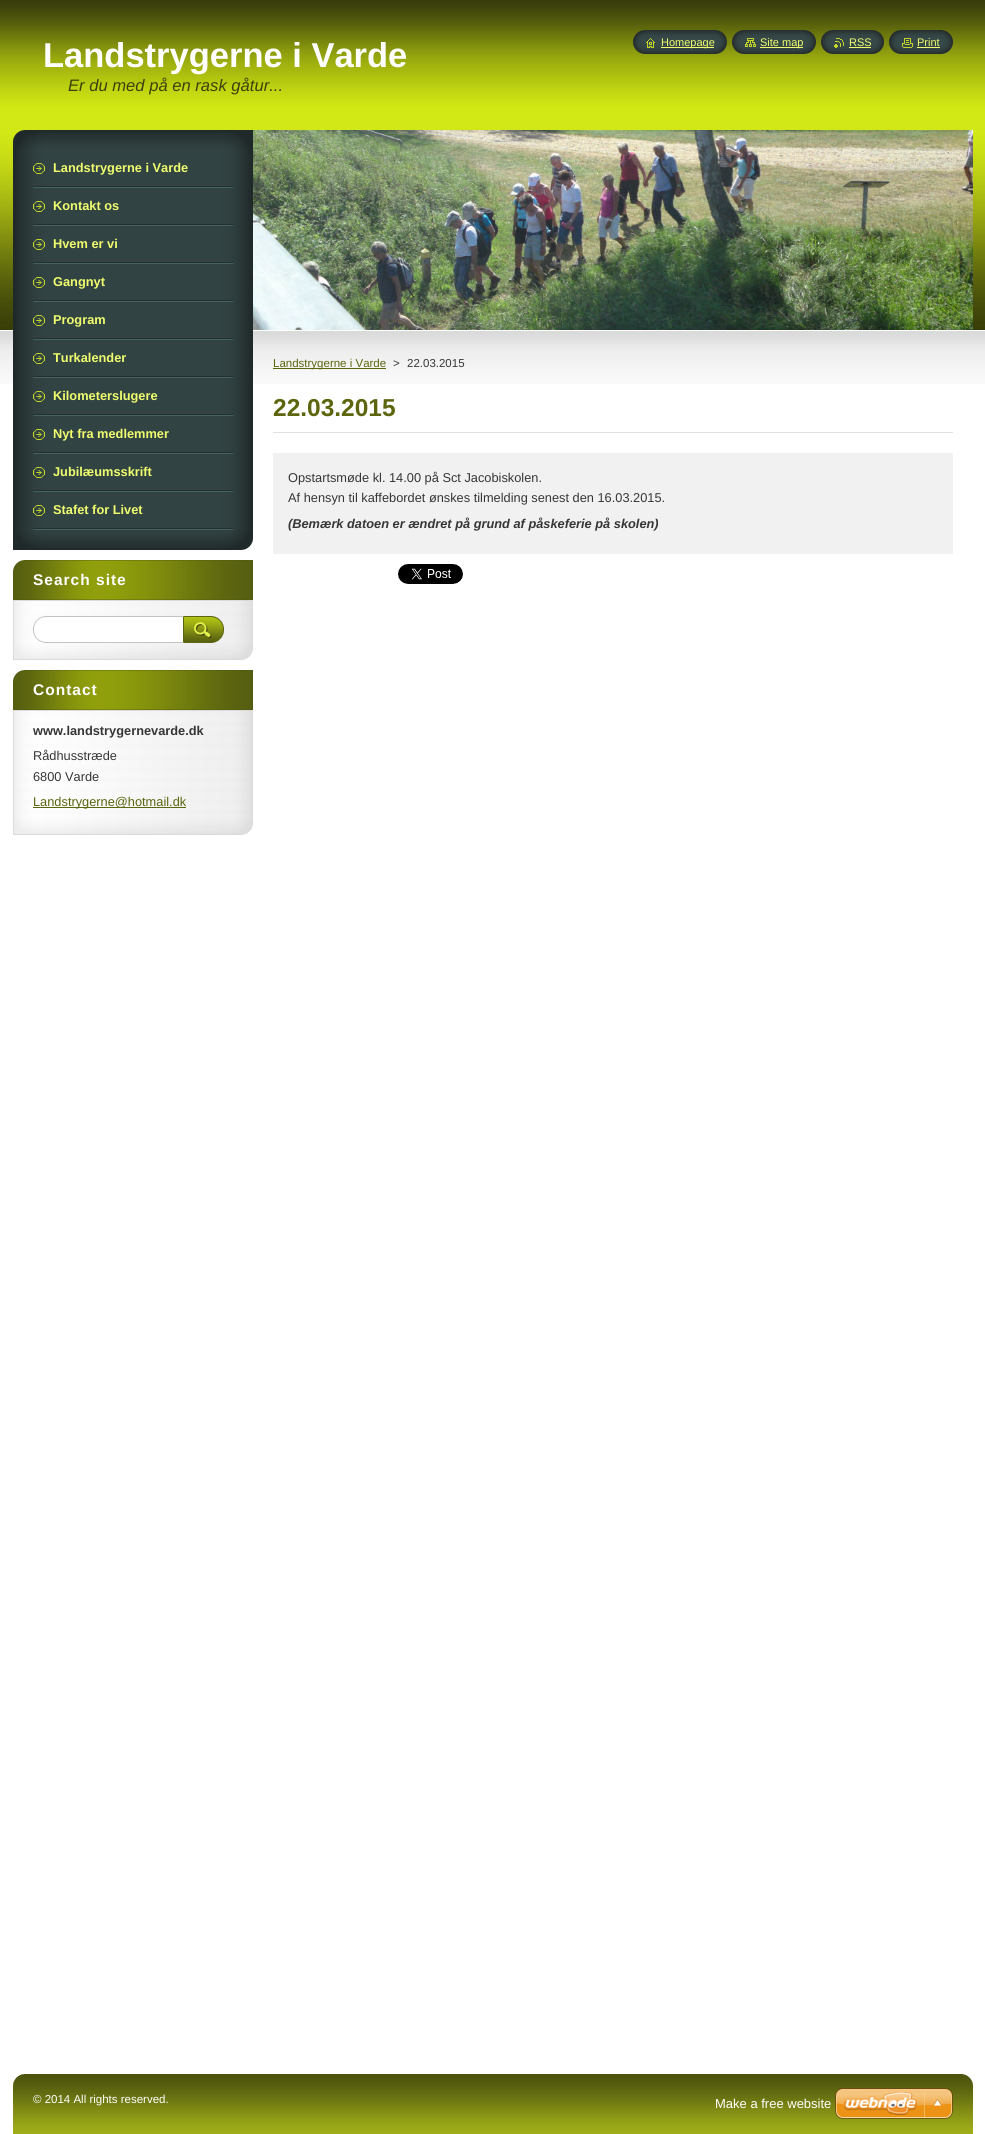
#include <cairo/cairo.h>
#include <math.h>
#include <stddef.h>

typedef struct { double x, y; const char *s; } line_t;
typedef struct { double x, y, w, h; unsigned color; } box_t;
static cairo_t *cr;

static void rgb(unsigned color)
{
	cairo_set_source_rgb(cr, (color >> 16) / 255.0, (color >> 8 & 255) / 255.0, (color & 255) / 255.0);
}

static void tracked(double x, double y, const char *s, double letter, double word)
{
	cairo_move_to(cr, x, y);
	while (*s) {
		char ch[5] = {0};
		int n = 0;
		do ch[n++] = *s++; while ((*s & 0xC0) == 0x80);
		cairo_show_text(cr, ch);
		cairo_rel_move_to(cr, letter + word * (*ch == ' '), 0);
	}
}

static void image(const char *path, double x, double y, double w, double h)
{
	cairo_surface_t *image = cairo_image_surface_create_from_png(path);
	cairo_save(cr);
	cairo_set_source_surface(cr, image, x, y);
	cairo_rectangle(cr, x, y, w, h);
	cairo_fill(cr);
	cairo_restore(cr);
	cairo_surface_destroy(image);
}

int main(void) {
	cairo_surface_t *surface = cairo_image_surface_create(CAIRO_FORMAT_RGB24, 985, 2134);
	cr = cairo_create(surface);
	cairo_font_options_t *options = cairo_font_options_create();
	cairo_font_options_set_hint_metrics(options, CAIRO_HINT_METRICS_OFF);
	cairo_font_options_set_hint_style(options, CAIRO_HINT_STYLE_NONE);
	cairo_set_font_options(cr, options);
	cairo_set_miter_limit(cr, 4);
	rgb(0xffffff);
	cairo_paint(cr);
	image("img/1.png", 0, 0, 985, 384);
	image("img/2.png", 633, 30, 13, 24);
	image("img/3.png", 646, 30, 81, 24);
	image("img/4.png", 646, 38, 9, 10);
	rgb(0xf0ff6d);
	cairo_rectangle(cr, 661, 47, 53, 1);
	cairo_fill(cr);
	image("img/2.png", 732, 30, 13, 24);
	image("img/5.png", 745, 30, 71, 24);
	image("img/6.png", 745, 38, 11, 9);
	cairo_rectangle(cr, 760, 47, 43, 1);
	cairo_fill(cr);
	image("img/2.png", 821, 30, 13, 24);
	image("img/7.png", 834, 30, 50, 24);
	image("img/8.png", 834, 38, 10, 10);
	cairo_rectangle(cr, 849, 47, 22, 1);
	cairo_fill(cr);
	image("img/2.png", 889, 30, 13, 24);
	image("img/9.png", 902, 30, 51, 24);
	image("img/10.png", 902, 38, 11, 10);
	cairo_rectangle(cr, 917, 47, 23, 1);
	cairo_fill(cr);
	image("img/11.png", 13, 130, 240, 20);
	image("img/12.png", 13, 530, 240, 20);
	image("img/13.png", 13, 150, 240, 380);
	image("img/14.png", 33, 186, 200, 2);
	image("img/15.png", 33, 163, 12, 11);
	image("img/14.png", 33, 224, 200, 2);
	image("img/15.png", 33, 201, 12, 11);
	image("img/14.png", 33, 262, 200, 2);
	image("img/15.png", 33, 239, 12, 11);
	image("img/14.png", 33, 300, 200, 2);
	image("img/15.png", 33, 277, 12, 11);
	image("img/14.png", 33, 338, 200, 2);
	image("img/15.png", 33, 315, 12, 11);
	image("img/14.png", 33, 376, 200, 2);
	image("img/15.png", 33, 353, 12, 11);
	image("img/14.png", 33, 414, 200, 2);
	image("img/15.png", 33, 391, 12, 11);
	image("img/14.png", 33, 452, 200, 2);
	image("img/15.png", 33, 429, 12, 11);
	image("img/14.png", 33, 490, 200, 2);
	image("img/15.png", 33, 467, 12, 11);
	image("img/14.png", 33, 528, 200, 2);
	image("img/15.png", 33, 505, 12, 11);
	image("img/16.png", 13, 643, 240, 17);
	image("img/17.png", 13, 560, 240, 40);
	image("img/18.png", 13, 601, 240, 42);
	rgb(0xdbdbdb);
	cairo_rectangle(cr, 13, 600, 240, 1);
	cairo_fill(cr);
	image("img/19.png", 33, 616, 150, 27);
	image("img/20.png", 183, 616, 41, 27);
	image("img/16.png", 13, 818, 240, 17);
	image("img/17.png", 13, 670, 240, 40);
	image("img/21.png", 13, 711, 240, 107);
	cairo_rectangle(cr, 13, 710, 240, 1);
	cairo_fill(cr);
	rgb(0x5d650e);
	cairo_rectangle(cr, 33, 807, 153, 1);
	cairo_fill(cr);
	image("img/22.png", 253, 130, 720, 200);
	{
		static const box_t items[] = {
			{273, 368, 113, 1, 0x5d650e},
			{273, 432, 680, 1, 0xe1e1e1},
			{273, 453, 680, 101, 0xf1f1f1},
		};
		for (size_t i = 0; i < sizeof items / sizeof *items; i++) {
			rgb(items[i].color);
			cairo_rectangle(cr, items[i].x, items[i].y, items[i].w, items[i].h);
			cairo_fill(cr);
		}
	}
	image("img/23.png", 398, 564, 65, 20);
	image("img/24.png", 13, 2074, 960, 60);
	image("img/25.png", 835, 2088, 118, 31);
	cairo_select_font_face(cr, "Liberation Sans", CAIRO_FONT_SLANT_NORMAL, CAIRO_FONT_WEIGHT_BOLD);
	cairo_set_font_size(cr, 34.5);
	rgb(0xffffff);
	cairo_move_to(cr, 43, 67);
	cairo_show_text(cr, "Landstrygerne i Varde");
	cairo_select_font_face(cr, "Liberation Sans", CAIRO_FONT_SLANT_ITALIC, CAIRO_FONT_WEIGHT_NORMAL);
	cairo_set_font_size(cr, 16.6);
	rgb(0x3c410c);
	cairo_move_to(cr, 68, 91);
	cairo_show_text(cr, "Er du med på en rask gåtur...");
	cairo_select_font_face(cr, "Liberation Sans", CAIRO_FONT_SLANT_NORMAL, CAIRO_FONT_WEIGHT_NORMAL);
	cairo_set_font_size(cr, 11);
	rgb(0xf0ff6d);
	{
		static const line_t items[] = {
			{661, 46, "Homepage"},
			{760, 46, "Site map"},
			{849, 46, "RSS"},
			{917, 46, "Print"},
		};
		for (size_t i = 0; i < sizeof items / sizeof *items; i++) {
			cairo_move_to(cr, items[i].x, items[i].y);
			cairo_show_text(cr, items[i].s);
		}
	}
	cairo_select_font_face(cr, "Liberation Sans", CAIRO_FONT_SLANT_NORMAL, CAIRO_FONT_WEIGHT_BOLD);
	cairo_set_font_size(cr, 12.8);
	{
		static const line_t items[] = {
			{53, 172, "Landstrygerne i Varde"},
			{53, 210, "Kontakt os"},
			{53, 248, "Hvem er vi"},
			{53, 286, "Gangnyt"},
			{53, 324, "Program"},
			{53, 362, "Turkalender"},
			{53, 400, "Kilometerslugere"},
			{53, 438, "Nyt fra medlemmer"},
			{53, 476, "Jubilæumsskrift"},
			{53, 514, "Stafet for Livet"},
		};
		for (size_t i = 0; i < sizeof items / sizeof *items; i++) {
			cairo_move_to(cr, items[i].x, items[i].y);
			cairo_show_text(cr, items[i].s);
		}
	}
	cairo_set_font_size(cr, 15.5);
	rgb(0xffffff);
	tracked(33, 585, "Search site", 1, 0);
	tracked(33, 695, "Contact", 1, 0);
	cairo_set_font_size(cr, 12.8);
	rgb(0x363636);
	cairo_move_to(cr, 33, 735);
	cairo_show_text(cr, "www.landstrygernevarde.dk");
	cairo_select_font_face(cr, "Liberation Sans", CAIRO_FONT_SLANT_NORMAL, CAIRO_FONT_WEIGHT_NORMAL);
	cairo_move_to(cr, 33, 760);
	cairo_show_text(cr, "Rådhusstræde");
	cairo_move_to(cr, 33, 781);
	cairo_show_text(cr, "6800 Varde");
	rgb(0x5d650e);
	cairo_move_to(cr, 33, 806);
	cairo_show_text(cr, "Landstrygerne@hotmail.dk");
	cairo_set_font_size(cr, 11.5);
	cairo_move_to(cr, 273, 367);
	cairo_show_text(cr, "Landstrygerne i Varde");
	rgb(0x363636);
	cairo_move_to(cr, 393, 367);
	cairo_show_text(cr, ">");
	cairo_move_to(cr, 407, 367);
	cairo_show_text(cr, "22.03.2015");
	cairo_select_font_face(cr, "Liberation Sans", CAIRO_FONT_SLANT_NORMAL, CAIRO_FONT_WEIGHT_BOLD);
	cairo_set_font_size(cr, 24.5);
	rgb(0x5d650e);
	cairo_move_to(cr, 273, 416);
	cairo_show_text(cr, "22.03.2015");
	cairo_select_font_face(cr, "Liberation Sans", CAIRO_FONT_SLANT_NORMAL, CAIRO_FONT_WEIGHT_NORMAL);
	cairo_set_font_size(cr, 12.8);
	rgb(0x363636);
	cairo_move_to(cr, 288, 482);
	cairo_show_text(cr, "Opstartsmøde kl. 14.00 på Sct Jacobiskolen.");
	cairo_move_to(cr, 288, 502);
	cairo_show_text(cr, "Af hensyn til kaffebordet ønskes tilmelding senest den 16.03.2015.");
	cairo_select_font_face(cr, "Liberation Sans", CAIRO_FONT_SLANT_ITALIC, CAIRO_FONT_WEIGHT_BOLD);
	cairo_move_to(cr, 288, 528);
	cairo_show_text(cr, "(Bemærk datoen er ændret på grund af påskeferie på skolen)");
	cairo_select_font_face(cr, "Liberation Sans", CAIRO_FONT_SLANT_NORMAL, CAIRO_FONT_WEIGHT_NORMAL);
	cairo_set_font_size(cr, 11.5);
	rgb(0xffffff);
	cairo_move_to(cr, 33, 2103);
	cairo_show_text(cr, "© 2014 All rights reserved.");
	cairo_set_font_size(cr, 13);
	cairo_move_to(cr, 715, 2108);
	cairo_show_text(cr, "Make a free website");
	cairo_surface_write_to_png(surface, "page.png");
	cairo_font_options_destroy(options);
	cairo_destroy(cr);
	cairo_surface_destroy(surface);
	return 0;
}
